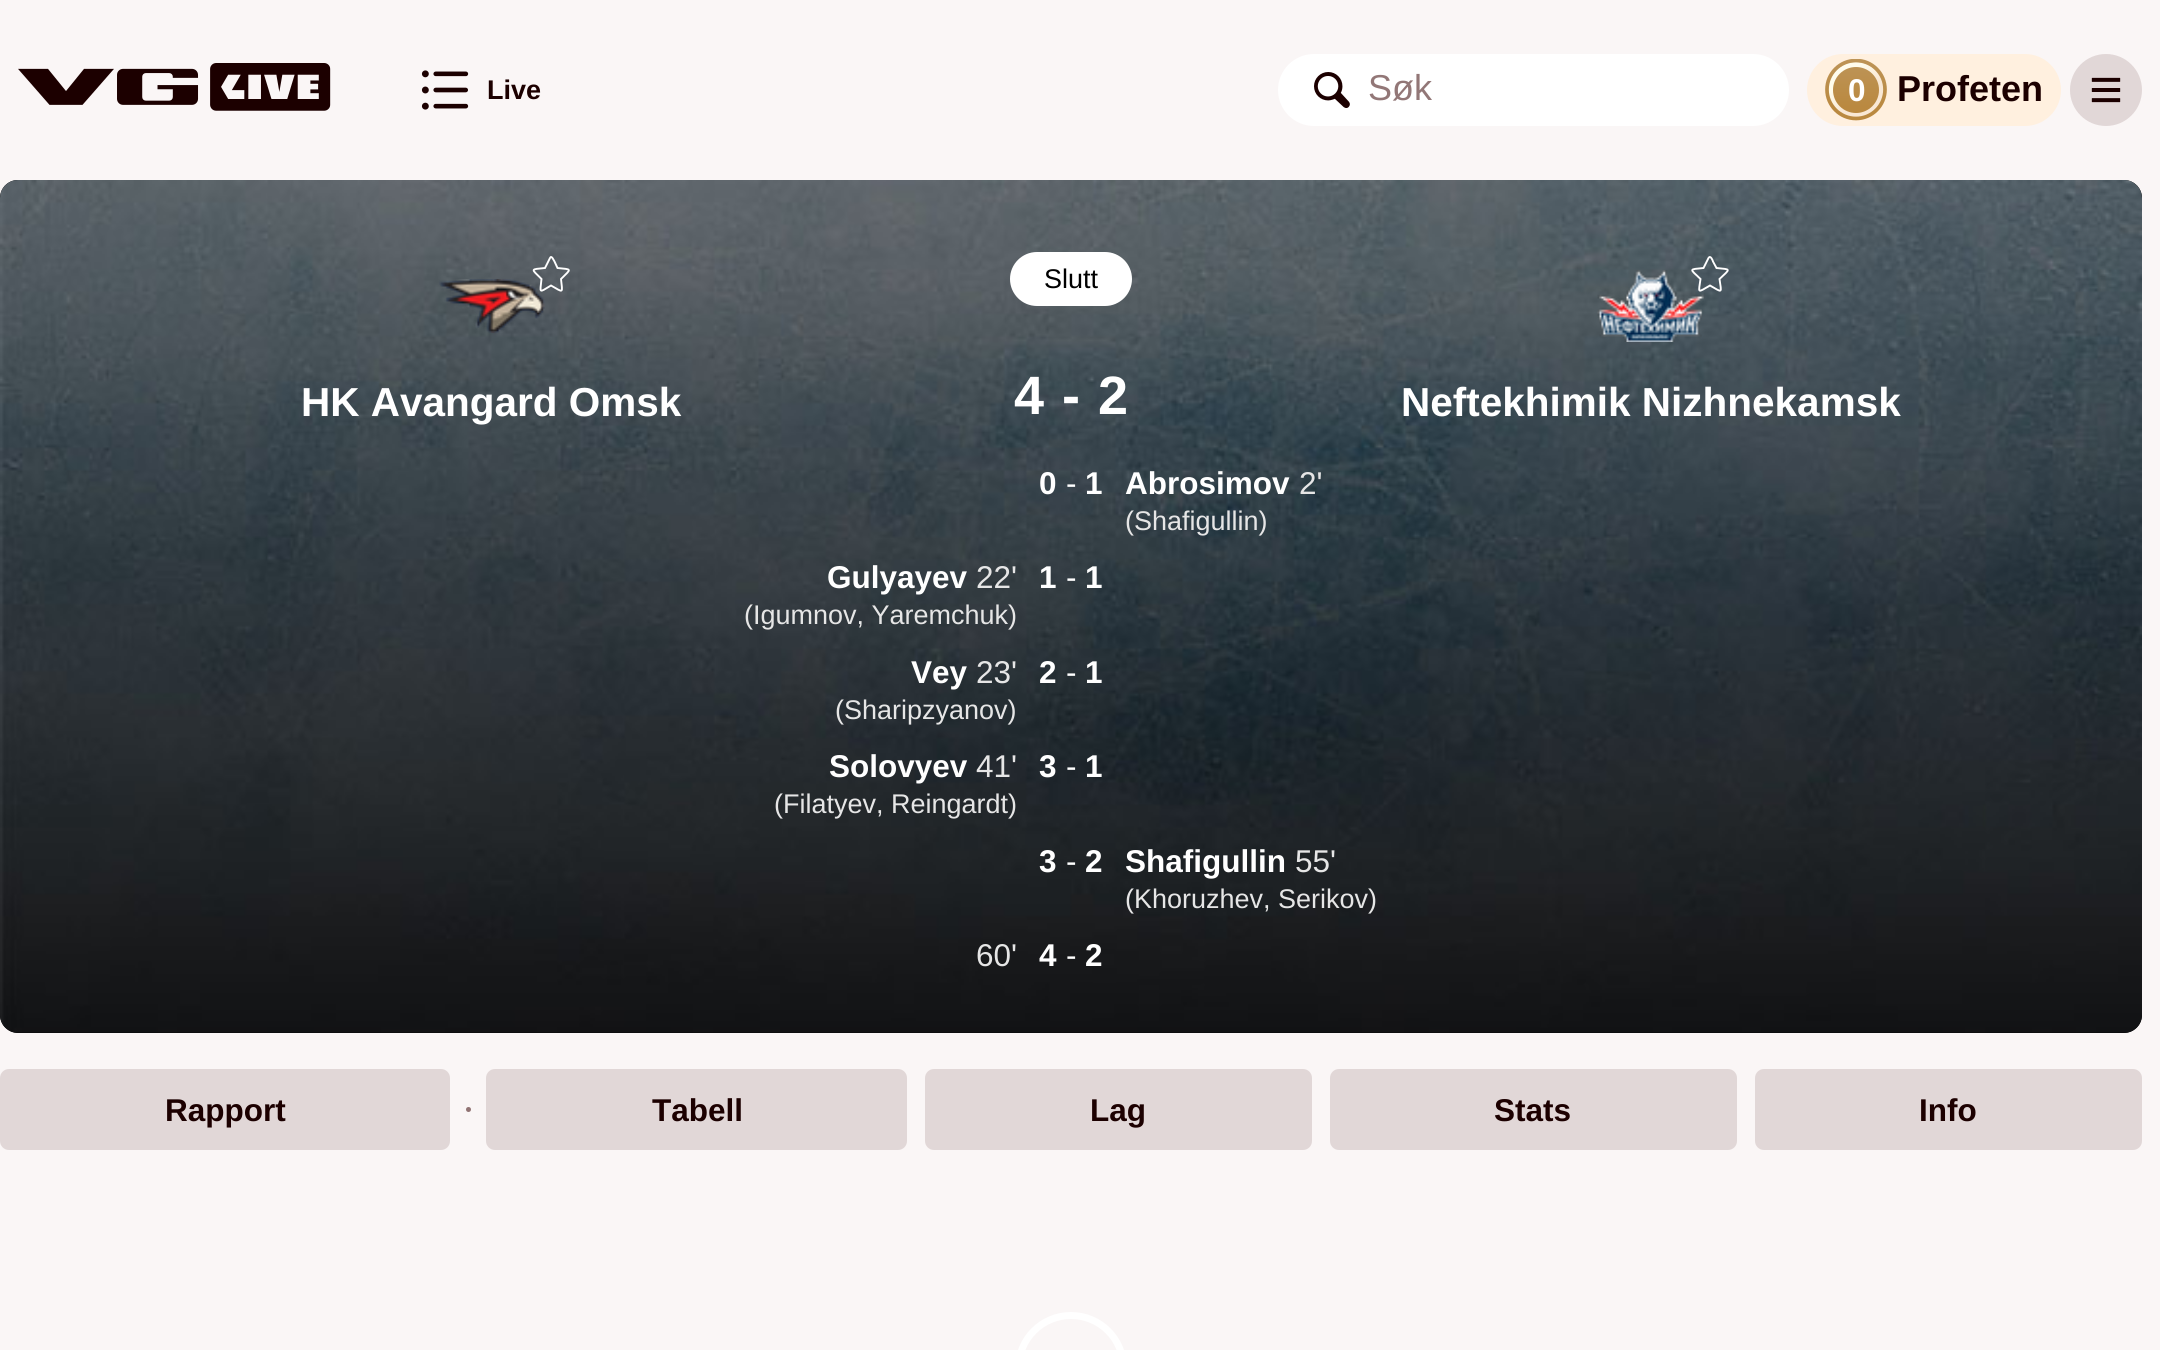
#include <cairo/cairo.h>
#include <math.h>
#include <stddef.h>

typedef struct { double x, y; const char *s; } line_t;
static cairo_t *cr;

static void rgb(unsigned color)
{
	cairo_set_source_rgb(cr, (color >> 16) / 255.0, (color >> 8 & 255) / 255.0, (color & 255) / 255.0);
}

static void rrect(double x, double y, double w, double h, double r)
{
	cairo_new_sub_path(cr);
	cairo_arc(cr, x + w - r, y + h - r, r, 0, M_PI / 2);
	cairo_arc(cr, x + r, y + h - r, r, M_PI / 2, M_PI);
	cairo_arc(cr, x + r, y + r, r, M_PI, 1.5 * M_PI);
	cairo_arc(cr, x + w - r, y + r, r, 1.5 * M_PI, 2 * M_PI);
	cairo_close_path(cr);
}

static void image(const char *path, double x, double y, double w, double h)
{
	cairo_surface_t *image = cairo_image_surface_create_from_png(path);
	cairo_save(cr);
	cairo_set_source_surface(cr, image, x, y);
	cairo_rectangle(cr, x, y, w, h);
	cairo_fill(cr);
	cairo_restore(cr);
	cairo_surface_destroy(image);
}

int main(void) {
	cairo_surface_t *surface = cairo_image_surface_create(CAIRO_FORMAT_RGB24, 2160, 1350);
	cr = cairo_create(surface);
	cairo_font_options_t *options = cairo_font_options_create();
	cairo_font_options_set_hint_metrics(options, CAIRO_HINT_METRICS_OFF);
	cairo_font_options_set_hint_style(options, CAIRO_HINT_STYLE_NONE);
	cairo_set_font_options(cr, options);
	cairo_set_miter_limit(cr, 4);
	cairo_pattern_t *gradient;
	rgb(0xfaf6f6);
	cairo_paint(cr);
	image("img/1.png", 18, 63, 313, 48);
	image("img/2.png", 421, 70, 48, 40);
	rgb(0xffffff);
	rrect(1278, 54, 511, 72, 36);
	cairo_fill(cr);
	image("img/3.png", 1314, 72, 36, 36);
	rgb(0xfff0df);
	rrect(1807, 54, 254, 72, 36);
	cairo_fill(cr);
	gradient = cairo_pattern_create_linear(1856, 62, 1856, 107);
	cairo_pattern_add_color_stop_rgba(gradient, 0, 0.741, 0.58, 0.341, 1);
	cairo_pattern_add_color_stop_rgba(gradient, 1, 0.729, 0.537, 0.251, 1);
	cairo_set_source(cr, gradient);
	cairo_pattern_destroy(gradient);
	cairo_new_path(cr);
	cairo_move_to(cr, 1856, 62);
	cairo_curve_to(cr, 1872, 62, 1884, 75, 1884, 90);
	cairo_curve_to(cr, 1884, 105, 1872, 118, 1856, 118);
	cairo_curve_to(cr, 1841, 118, 1828, 105, 1828, 90);
	cairo_curve_to(cr, 1828, 75, 1841, 62, 1856, 62);
	cairo_fill(cr);
	cairo_arc(cr, 1856, 90, 25.5, 0, 2 * M_PI);
	gradient = cairo_pattern_create_linear(1843, 81, 1858, 98);
	cairo_pattern_add_color_stop_rgba(gradient, 0, 1, 0.988, 0.925, 1);
	cairo_pattern_add_color_stop_rgba(gradient, 1, 0.976, 0.91, 0.831, 1);
	cairo_set_source(cr, gradient);
	cairo_pattern_destroy(gradient);
	cairo_set_line_width(cr, 5);
	cairo_stroke(cr);
	cairo_save(cr);
	cairo_rectangle(cr, 1825, 59, 63, 63);
	cairo_clip(cr);
	cairo_arc(cr, 1856, 89.5, 29, 0, 2 * M_PI);
	gradient = cairo_pattern_create_linear(1856, 59, 1856, 109);
	cairo_pattern_add_color_stop_rgba(gradient, 0, 0.741, 0.58, 0.341, 1);
	cairo_pattern_add_color_stop_rgba(gradient, 1, 0.729, 0.537, 0.251, 1);
	cairo_set_source(cr, gradient);
	cairo_pattern_destroy(gradient);
	cairo_set_line_width(cr, 3.7);
	cairo_stroke(cr);
	cairo_restore(cr);
	rgb(0xe1d7d7);
	cairo_arc(cr, 2106, 90, 36, 0, 2 * M_PI);
	cairo_fill(cr);
	image("img/4.png", 2091, 77, 30, 26);
	rgb(0x000000);
	rrect(0, 180, 2142, 853, 18);
	cairo_fill(cr);
	image("img/5.png", 0, 180, 2142, 853);
	image("img/6.png", 439, 279, 106, 54);
	cairo_new_path(cr);
	cairo_move_to(cr, 550, 258);
	cairo_curve_to(cr, 551.5, 254.5, 554, 261, 554.5, 261.5);
	cairo_line_to(cr, 557.5, 268);
	cairo_curve_to(cr, 572.5, 269.5, 571.5, 268.5, 561, 279);
	cairo_curve_to(cr, 562.5, 293.5, 564, 293, 551, 285.5);
	cairo_curve_to(cr, 538.5, 293, 540, 293.5, 541.5, 279);
	cairo_curve_to(cr, 531, 268.5, 530, 269.5, 545, 268);
	cairo_close_path(cr);
	rgb(0xffffff);
	cairo_set_line_width(cr, 1.9);
	cairo_stroke(cr);
	rrect(1010, 252, 122, 54, 27);
	cairo_fill(cr);
	image("img/7.png", 1597, 270, 108, 72);
	cairo_new_path(cr);
	cairo_move_to(cr, 1708.5, 258);
	cairo_curve_to(cr, 1710.5, 254.5, 1713, 261, 1713, 261.5);
	cairo_line_to(cr, 1716.5, 268);
	cairo_curve_to(cr, 1731.5, 269.5, 1730.5, 268.5, 1719.5, 279);
	cairo_curve_to(cr, 1721.5, 293.5, 1723, 293, 1710, 285.5);
	cairo_curve_to(cr, 1697, 293, 1698.5, 293.5, 1700.5, 279);
	cairo_curve_to(cr, 1689.5, 268.5, 1688.5, 269.5, 1703.5, 268);
	cairo_close_path(cr);
	cairo_stroke(cr);
	rgb(0xe1d7d7);
	rrect(0, 1069, 450, 81, 9);
	cairo_fill(cr);
	rrect(486, 1069, 421, 81, 9);
	cairo_fill(cr);
	rgb(0x907373);
	cairo_arc(cr, 468.5, 1109.5, 2.5, 0, 2 * M_PI);
	cairo_fill(cr);
	rgb(0xe1d7d7);
	rrect(925, 1069, 387, 81, 9);
	cairo_fill(cr);
	rrect(1330, 1069, 407, 81, 9);
	cairo_fill(cr);
	rrect(1755, 1069, 387, 81, 9);
	cairo_fill(cr);
	rrect(1018.5, 1315.5, 105, 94, 52.5);
	rgb(0xffffff);
	cairo_set_line_width(cr, 7);
	cairo_stroke(cr);
	cairo_select_font_face(cr, "Liberation Sans", CAIRO_FONT_SLANT_NORMAL, CAIRO_FONT_WEIGHT_BOLD);
	cairo_set_font_size(cr, 27);
	rgb(0x1c0000);
	cairo_move_to(cr, 487, 99);
	cairo_show_text(cr, "Live");
	cairo_select_font_face(cr, "Liberation Sans", CAIRO_FONT_SLANT_NORMAL, CAIRO_FONT_WEIGHT_NORMAL);
	cairo_set_font_size(cr, 36);
	rgb(0x927777);
	cairo_move_to(cr, 1368, 100);
	cairo_show_text(cr, "Søk");
	cairo_select_font_face(cr, "Liberation Sans", CAIRO_FONT_SLANT_NORMAL, CAIRO_FONT_WEIGHT_BOLD);
	cairo_set_font_size(cr, 31.5);
	rgb(0xffffff);
	cairo_move_to(cr, 1848, 101);
	cairo_show_text(cr, "0");
	cairo_set_font_size(cr, 36);
	rgb(0x1c0000);
	cairo_move_to(cr, 1897, 101);
	cairo_show_text(cr, "Profeten");
	cairo_set_font_size(cr, 40.5);
	rgb(0xffffff);
	cairo_move_to(cr, 301, 416);
	cairo_show_text(cr, "HK Avangard Omsk");
	cairo_select_font_face(cr, "Liberation Sans", CAIRO_FONT_SLANT_NORMAL, CAIRO_FONT_WEIGHT_NORMAL);
	cairo_set_font_size(cr, 27);
	rgb(0x000000);
	cairo_move_to(cr, 1044, 288);
	cairo_show_text(cr, "Slutt");
	cairo_select_font_face(cr, "Liberation Sans", CAIRO_FONT_SLANT_NORMAL, CAIRO_FONT_WEIGHT_BOLD);
	cairo_set_font_size(cr, 54);
	rgb(0xffffff);
	{
		static const line_t items[] = {
			{1014, 414, "4"},
			{1062, 414, "-"},
			{1098, 414, "2"},
		};
		for (size_t i = 0; i < sizeof items / sizeof *items; i++) {
			cairo_move_to(cr, items[i].x, items[i].y);
			cairo_show_text(cr, items[i].s);
		}
	}
	cairo_set_font_size(cr, 40.5);
	cairo_move_to(cr, 1401, 416);
	cairo_show_text(cr, "Neftekhimik Nizhnekamsk");
	cairo_set_font_size(cr, 31.5);
	cairo_move_to(cr, 1039, 494);
	cairo_show_text(cr, "0");
	cairo_select_font_face(cr, "Liberation Sans", CAIRO_FONT_SLANT_NORMAL, CAIRO_FONT_WEIGHT_NORMAL);
	cairo_move_to(cr, 1066, 494);
	cairo_show_text(cr, "-");
	cairo_select_font_face(cr, "Liberation Sans", CAIRO_FONT_SLANT_NORMAL, CAIRO_FONT_WEIGHT_BOLD);
	cairo_move_to(cr, 1085, 494);
	cairo_show_text(cr, "1");
	cairo_move_to(cr, 1125, 494);
	cairo_show_text(cr, "Abrosimov");
	cairo_select_font_face(cr, "Liberation Sans", CAIRO_FONT_SLANT_NORMAL, CAIRO_FONT_WEIGHT_NORMAL);
	rgb(0xe6e6e6);
	cairo_move_to(cr, 1299, 494);
	cairo_show_text(cr, "2'");
	cairo_set_font_size(cr, 27);
	cairo_move_to(cr, 1125, 530);
	cairo_show_text(cr, "(Shafigullin)");
	cairo_select_font_face(cr, "Liberation Sans", CAIRO_FONT_SLANT_NORMAL, CAIRO_FONT_WEIGHT_BOLD);
	cairo_set_font_size(cr, 31.5);
	rgb(0xffffff);
	cairo_move_to(cr, 827, 588);
	cairo_show_text(cr, "Gulyayev");
	cairo_select_font_face(cr, "Liberation Sans", CAIRO_FONT_SLANT_NORMAL, CAIRO_FONT_WEIGHT_NORMAL);
	rgb(0xe6e6e6);
	cairo_move_to(cr, 976, 588);
	cairo_show_text(cr, "22'");
	cairo_set_font_size(cr, 27);
	cairo_move_to(cr, 744, 624);
	cairo_show_text(cr, "(Igumnov, Yaremchuk)");
	cairo_select_font_face(cr, "Liberation Sans", CAIRO_FONT_SLANT_NORMAL, CAIRO_FONT_WEIGHT_BOLD);
	cairo_set_font_size(cr, 31.5);
	rgb(0xffffff);
	cairo_move_to(cr, 1039, 588);
	cairo_show_text(cr, "1");
	cairo_select_font_face(cr, "Liberation Sans", CAIRO_FONT_SLANT_NORMAL, CAIRO_FONT_WEIGHT_NORMAL);
	cairo_move_to(cr, 1066, 588);
	cairo_show_text(cr, "-");
	cairo_select_font_face(cr, "Liberation Sans", CAIRO_FONT_SLANT_NORMAL, CAIRO_FONT_WEIGHT_BOLD);
	cairo_move_to(cr, 1085, 588);
	cairo_show_text(cr, "1");
	cairo_move_to(cr, 911, 683);
	cairo_show_text(cr, "Vey");
	cairo_select_font_face(cr, "Liberation Sans", CAIRO_FONT_SLANT_NORMAL, CAIRO_FONT_WEIGHT_NORMAL);
	rgb(0xe6e6e6);
	cairo_move_to(cr, 976, 683);
	cairo_show_text(cr, "23'");
	cairo_set_font_size(cr, 27);
	cairo_move_to(cr, 835, 719);
	cairo_show_text(cr, "(Sharipzyanov)");
	cairo_select_font_face(cr, "Liberation Sans", CAIRO_FONT_SLANT_NORMAL, CAIRO_FONT_WEIGHT_BOLD);
	cairo_set_font_size(cr, 31.5);
	rgb(0xffffff);
	cairo_move_to(cr, 1039, 683);
	cairo_show_text(cr, "2");
	cairo_select_font_face(cr, "Liberation Sans", CAIRO_FONT_SLANT_NORMAL, CAIRO_FONT_WEIGHT_NORMAL);
	cairo_move_to(cr, 1066, 683);
	cairo_show_text(cr, "-");
	cairo_select_font_face(cr, "Liberation Sans", CAIRO_FONT_SLANT_NORMAL, CAIRO_FONT_WEIGHT_BOLD);
	cairo_move_to(cr, 1085, 683);
	cairo_show_text(cr, "1");
	cairo_move_to(cr, 829, 777);
	cairo_show_text(cr, "Solovyev");
	cairo_select_font_face(cr, "Liberation Sans", CAIRO_FONT_SLANT_NORMAL, CAIRO_FONT_WEIGHT_NORMAL);
	rgb(0xe6e6e6);
	cairo_move_to(cr, 976, 777);
	cairo_show_text(cr, "41'");
	cairo_set_font_size(cr, 27);
	cairo_move_to(cr, 774, 813);
	cairo_show_text(cr, "(Filatyev, Reingardt)");
	cairo_select_font_face(cr, "Liberation Sans", CAIRO_FONT_SLANT_NORMAL, CAIRO_FONT_WEIGHT_BOLD);
	cairo_set_font_size(cr, 31.5);
	rgb(0xffffff);
	cairo_move_to(cr, 1039, 777);
	cairo_show_text(cr, "3");
	cairo_select_font_face(cr, "Liberation Sans", CAIRO_FONT_SLANT_NORMAL, CAIRO_FONT_WEIGHT_NORMAL);
	cairo_move_to(cr, 1066, 777);
	cairo_show_text(cr, "-");
	cairo_select_font_face(cr, "Liberation Sans", CAIRO_FONT_SLANT_NORMAL, CAIRO_FONT_WEIGHT_BOLD);
	cairo_move_to(cr, 1085, 777);
	cairo_show_text(cr, "1");
	cairo_move_to(cr, 1039, 872);
	cairo_show_text(cr, "3");
	cairo_select_font_face(cr, "Liberation Sans", CAIRO_FONT_SLANT_NORMAL, CAIRO_FONT_WEIGHT_NORMAL);
	cairo_move_to(cr, 1066, 872);
	cairo_show_text(cr, "-");
	cairo_select_font_face(cr, "Liberation Sans", CAIRO_FONT_SLANT_NORMAL, CAIRO_FONT_WEIGHT_BOLD);
	cairo_move_to(cr, 1085, 872);
	cairo_show_text(cr, "2");
	cairo_move_to(cr, 1125, 872);
	cairo_show_text(cr, "Shafigullin");
	cairo_select_font_face(cr, "Liberation Sans", CAIRO_FONT_SLANT_NORMAL, CAIRO_FONT_WEIGHT_NORMAL);
	rgb(0xe6e6e6);
	cairo_move_to(cr, 1295, 872);
	cairo_show_text(cr, "55'");
	cairo_set_font_size(cr, 27);
	cairo_move_to(cr, 1125, 908);
	cairo_show_text(cr, "(Khoruzhev, Serikov)");
	cairo_set_font_size(cr, 31.5);
	cairo_move_to(cr, 976, 966);
	cairo_show_text(cr, "60'");
	cairo_select_font_face(cr, "Liberation Sans", CAIRO_FONT_SLANT_NORMAL, CAIRO_FONT_WEIGHT_BOLD);
	rgb(0xffffff);
	cairo_move_to(cr, 1039, 966);
	cairo_show_text(cr, "4");
	cairo_select_font_face(cr, "Liberation Sans", CAIRO_FONT_SLANT_NORMAL, CAIRO_FONT_WEIGHT_NORMAL);
	cairo_move_to(cr, 1066, 966);
	cairo_show_text(cr, "-");
	cairo_select_font_face(cr, "Liberation Sans", CAIRO_FONT_SLANT_NORMAL, CAIRO_FONT_WEIGHT_BOLD);
	cairo_move_to(cr, 1085, 966);
	cairo_show_text(cr, "2");
	rgb(0x1c0000);
	{
		static const line_t items[] = {
			{165, 1121, "Rapport"},
			{652, 1121, "Tabell"},
			{1090, 1121, "Lag"},
			{1494, 1121, "Stats"},
			{1919, 1121, "Info"},
		};
		for (size_t i = 0; i < sizeof items / sizeof *items; i++) {
			cairo_move_to(cr, items[i].x, items[i].y);
			cairo_show_text(cr, items[i].s);
		}
	}
	cairo_surface_write_to_png(surface, "page.png");
	cairo_font_options_destroy(options);
	cairo_destroy(cr);
	cairo_surface_destroy(surface);
	return 0;
}
